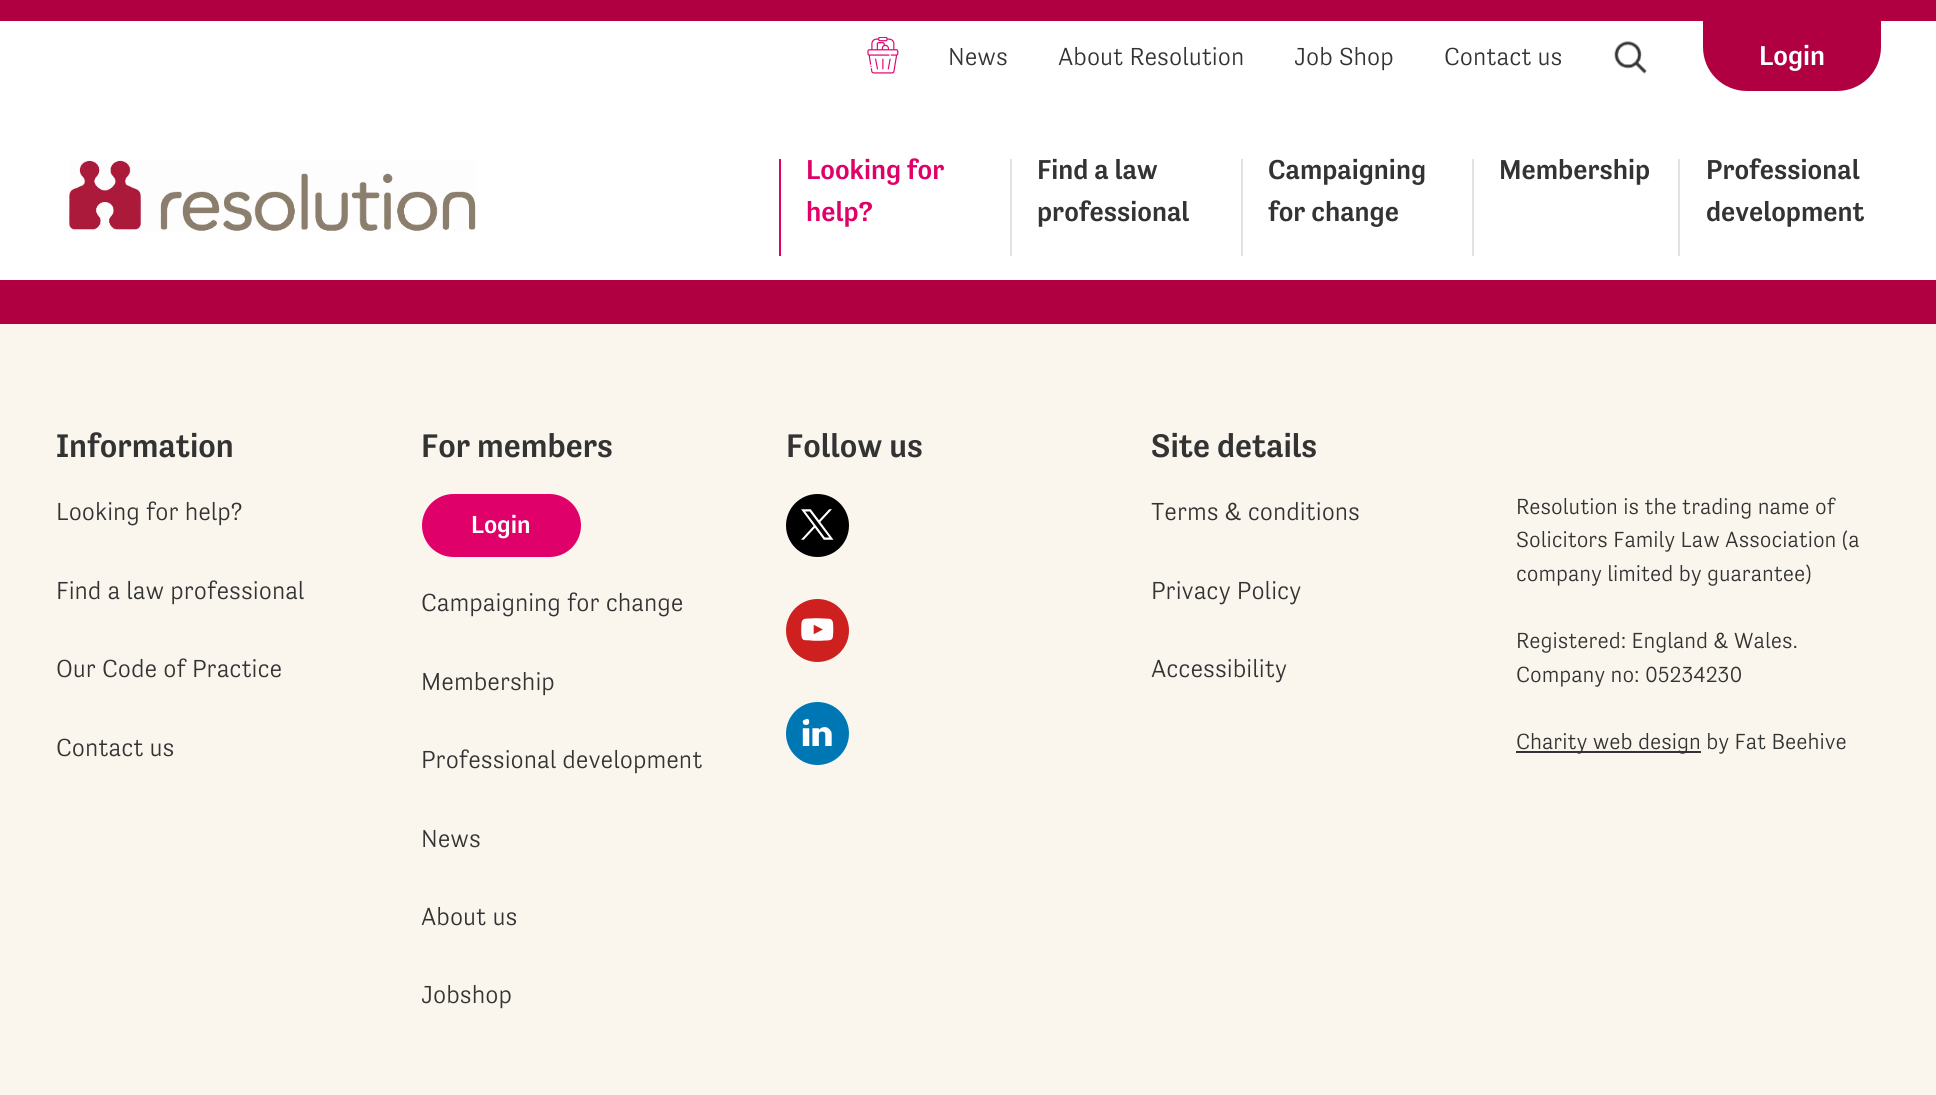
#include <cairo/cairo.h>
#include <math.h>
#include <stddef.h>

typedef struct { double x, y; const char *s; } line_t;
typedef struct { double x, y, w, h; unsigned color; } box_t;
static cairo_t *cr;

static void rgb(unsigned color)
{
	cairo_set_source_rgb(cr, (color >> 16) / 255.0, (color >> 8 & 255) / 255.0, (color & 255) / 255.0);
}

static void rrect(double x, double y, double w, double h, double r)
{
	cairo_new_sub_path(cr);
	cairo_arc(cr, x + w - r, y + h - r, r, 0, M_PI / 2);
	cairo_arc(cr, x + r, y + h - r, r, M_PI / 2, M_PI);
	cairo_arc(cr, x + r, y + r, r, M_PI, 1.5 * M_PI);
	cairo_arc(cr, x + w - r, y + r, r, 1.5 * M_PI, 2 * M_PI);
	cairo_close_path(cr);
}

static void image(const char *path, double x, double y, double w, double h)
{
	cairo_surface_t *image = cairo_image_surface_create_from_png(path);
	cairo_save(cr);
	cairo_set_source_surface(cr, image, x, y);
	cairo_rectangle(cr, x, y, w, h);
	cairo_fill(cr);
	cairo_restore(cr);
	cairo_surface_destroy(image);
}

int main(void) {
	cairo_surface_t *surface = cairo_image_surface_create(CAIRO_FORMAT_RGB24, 1936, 1095);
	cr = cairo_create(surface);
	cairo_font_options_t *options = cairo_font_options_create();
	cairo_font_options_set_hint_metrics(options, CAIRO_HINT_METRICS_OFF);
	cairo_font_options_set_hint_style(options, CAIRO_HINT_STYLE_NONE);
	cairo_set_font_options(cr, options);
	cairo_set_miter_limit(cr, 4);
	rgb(0xb10042);
	cairo_paint(cr);
	rgb(0xffffff);
	cairo_rectangle(cr, 0, 21, 1936, 259);
	cairo_fill(cr);
	image("img/1.png", 867, 37, 32, 37);
	image("img/2.png", 1614, 41, 33, 33);
	rgb(0xb10042);
	cairo_new_path(cr);
	cairo_move_to(cr, 1703, 21);
	cairo_line_to(cr, 1881, 21);
	cairo_line_to(cr, 1881, 47);
	cairo_curve_to(cr, 1881, 71.5, 1861.5, 91, 1837, 91);
	cairo_line_to(cr, 1747, 91);
	cairo_curve_to(cr, 1722.5, 91, 1703, 71.5, 1703, 47);
	cairo_close_path(cr);
	cairo_fill(cr);
	image("img/3.png", 69, 160, 407, 71);
	{
		static const box_t items[] = {
			{779, 159, 2, 97, 0xe00069},
			{1010, 159, 2, 97, 0xe1e1e0},
			{1241, 159, 2, 97, 0xe1e1e0},
			{1472, 159, 2, 97, 0xe1e1e0},
			{1678, 159, 2, 97, 0xe1e1e0},
			{0, 324, 1936, 771, 0xfaf6ed},
		};
		for (size_t i = 0; i < sizeof items / sizeof *items; i++) {
			rgb(items[i].color);
			cairo_rectangle(cr, items[i].x, items[i].y, items[i].w, items[i].h);
			cairo_fill(cr);
		}
	}
	rgb(0xe00069);
	rrect(422, 494, 159, 63, 31.5);
	cairo_fill(cr);
	rgb(0x000000);
	cairo_arc(cr, 817.5, 525.5, 31.5, 0, 2 * M_PI);
	cairo_fill(cr);
	image("img/4.png", 801, 509, 33, 31);
	rgb(0xcd201f);
	cairo_arc(cr, 817.5, 630.5, 31.5, 0, 2 * M_PI);
	cairo_fill(cr);
	image("img/5.png", 801, 618, 33, 23);
	rgb(0x0077b5);
	cairo_arc(cr, 817.5, 733.5, 31.5, 0, 2 * M_PI);
	cairo_fill(cr);
	image("img/6.png", 802, 718, 30, 28);
	rgb(0x333333);
	cairo_rectangle(cr, 1516, 751, 185, 2);
	cairo_fill(cr);
	cairo_select_font_face(cr, "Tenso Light", CAIRO_FONT_SLANT_NORMAL, CAIRO_FONT_WEIGHT_NORMAL);
	cairo_set_font_size(cr, 25.25);
	{
		static const line_t items[] = {
			{948, 65, "News"},
			{1058, 65, "About Resolution"},
			{1294, 65, "Job Shop"},
			{1444, 65, "Contact us"},
		};
		for (size_t i = 0; i < sizeof items / sizeof *items; i++) {
			cairo_move_to(cr, items[i].x, items[i].y);
			cairo_show_text(cr, items[i].s);
		}
	}
	cairo_select_font_face(cr, "Tenso Medium", CAIRO_FONT_SLANT_NORMAL, CAIRO_FONT_WEIGHT_NORMAL);
	cairo_set_font_size(cr, 28);
	rgb(0xffffff);
	cairo_move_to(cr, 1759, 65);
	cairo_show_text(cr, "Login");
	rgb(0xe00069);
	cairo_move_to(cr, 806, 179);
	cairo_show_text(cr, "Looking for");
	cairo_move_to(cr, 806, 221);
	cairo_show_text(cr, "help?");
	rgb(0x333333);
	{
		static const line_t items[] = {
			{1037, 179, "Find a law"},
			{1037, 221, "professional"},
			{1268, 179, "Campaigning"},
			{1268, 221, "for change"},
			{1499, 179, "Membership"},
			{1706, 179, "Professional"},
			{1706, 221, "development"},
		};
		for (size_t i = 0; i < sizeof items / sizeof *items; i++) {
			cairo_move_to(cr, items[i].x, items[i].y);
			cairo_show_text(cr, items[i].s);
		}
	}
	cairo_set_font_size(cr, 33.5);
	cairo_move_to(cr, 56, 457);
	cairo_show_text(cr, "Information");
	cairo_select_font_face(cr, "Tenso Light", CAIRO_FONT_SLANT_NORMAL, CAIRO_FONT_WEIGHT_NORMAL);
	cairo_set_font_size(cr, 25.25);
	{
		static const line_t items[] = {
			{56, 520, "Looking for help?"},
			{56, 599, "Find a law professional"},
			{56, 677, "Our Code of Practice"},
			{56, 756, "Contact us"},
		};
		for (size_t i = 0; i < sizeof items / sizeof *items; i++) {
			cairo_move_to(cr, items[i].x, items[i].y);
			cairo_show_text(cr, items[i].s);
		}
	}
	cairo_select_font_face(cr, "Tenso Medium", CAIRO_FONT_SLANT_NORMAL, CAIRO_FONT_WEIGHT_NORMAL);
	cairo_set_font_size(cr, 33.5);
	cairo_move_to(cr, 421, 457);
	cairo_show_text(cr, "For members");
	cairo_set_font_size(cr, 25.25);
	rgb(0xffffff);
	cairo_move_to(cr, 471, 533);
	cairo_show_text(cr, "Login");
	cairo_select_font_face(cr, "Tenso Light", CAIRO_FONT_SLANT_NORMAL, CAIRO_FONT_WEIGHT_NORMAL);
	rgb(0x333333);
	{
		static const line_t items[] = {
			{421, 611, "Campaigning for change"},
			{421, 690, "Membership"},
			{421, 768, "Professional development"},
			{421, 847, "News"},
			{421, 925, "About us"},
			{421, 1003, "Jobshop"},
		};
		for (size_t i = 0; i < sizeof items / sizeof *items; i++) {
			cairo_move_to(cr, items[i].x, items[i].y);
			cairo_show_text(cr, items[i].s);
		}
	}
	cairo_select_font_face(cr, "Tenso Medium", CAIRO_FONT_SLANT_NORMAL, CAIRO_FONT_WEIGHT_NORMAL);
	cairo_set_font_size(cr, 33.5);
	cairo_move_to(cr, 786, 457);
	cairo_show_text(cr, "Follow us");
	cairo_move_to(cr, 1151, 457);
	cairo_show_text(cr, "Site details");
	cairo_select_font_face(cr, "Tenso Light", CAIRO_FONT_SLANT_NORMAL, CAIRO_FONT_WEIGHT_NORMAL);
	cairo_set_font_size(cr, 25.25);
	{
		static const line_t items[] = {
			{1151, 520, "Terms & conditions"},
			{1151, 599, "Privacy Policy"},
			{1151, 677, "Accessibility"},
		};
		for (size_t i = 0; i < sizeof items / sizeof *items; i++) {
			cairo_move_to(cr, items[i].x, items[i].y);
			cairo_show_text(cr, items[i].s);
		}
	}
	cairo_set_font_size(cr, 22.4);
	{
		static const line_t items[] = {
			{1516, 514, "Resolution is the trading name of"},
			{1516, 547, "Solicitors Family Law Association (a"},
			{1516, 581, "company limited by guarantee)"},
			{1516, 648, "Registered: England & Wales."},
			{1516, 682, "Company no: 05234230"},
			{1516, 749, "Charity web design by Fat Beehive"},
		};
		for (size_t i = 0; i < sizeof items / sizeof *items; i++) {
			cairo_move_to(cr, items[i].x, items[i].y);
			cairo_show_text(cr, items[i].s);
		}
	}
	cairo_surface_write_to_png(surface, "page.png");
	cairo_font_options_destroy(options);
	cairo_destroy(cr);
	cairo_surface_destroy(surface);
	return 0;
}
